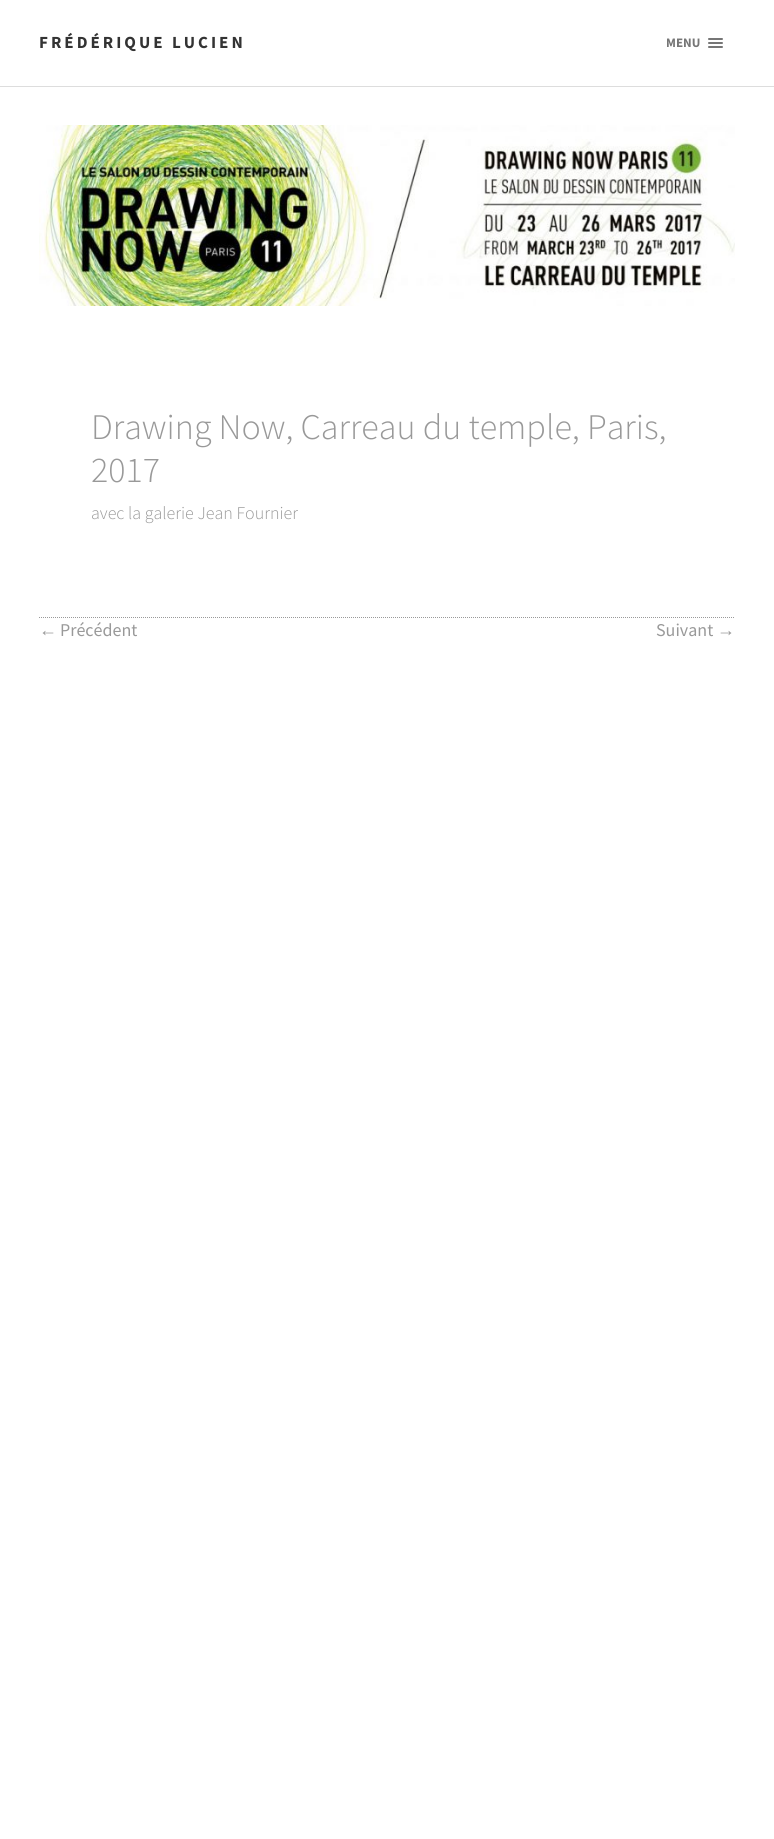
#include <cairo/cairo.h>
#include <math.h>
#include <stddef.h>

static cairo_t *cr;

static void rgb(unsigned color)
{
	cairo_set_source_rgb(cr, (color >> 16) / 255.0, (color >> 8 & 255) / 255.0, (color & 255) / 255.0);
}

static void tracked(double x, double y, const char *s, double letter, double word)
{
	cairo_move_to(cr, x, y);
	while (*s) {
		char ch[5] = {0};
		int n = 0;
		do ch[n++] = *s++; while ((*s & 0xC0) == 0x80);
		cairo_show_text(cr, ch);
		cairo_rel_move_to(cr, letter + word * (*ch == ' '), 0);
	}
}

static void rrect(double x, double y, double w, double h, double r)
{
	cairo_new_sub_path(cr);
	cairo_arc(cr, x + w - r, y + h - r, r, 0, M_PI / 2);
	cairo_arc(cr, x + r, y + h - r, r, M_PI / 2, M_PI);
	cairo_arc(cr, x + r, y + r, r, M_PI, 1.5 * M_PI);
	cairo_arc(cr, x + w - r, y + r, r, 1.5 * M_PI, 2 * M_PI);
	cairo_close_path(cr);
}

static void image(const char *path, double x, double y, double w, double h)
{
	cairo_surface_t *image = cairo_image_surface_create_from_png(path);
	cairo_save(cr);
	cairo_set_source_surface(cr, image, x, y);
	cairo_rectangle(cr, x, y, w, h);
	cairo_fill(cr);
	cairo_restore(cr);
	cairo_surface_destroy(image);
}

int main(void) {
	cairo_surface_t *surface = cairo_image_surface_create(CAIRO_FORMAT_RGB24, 774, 1839);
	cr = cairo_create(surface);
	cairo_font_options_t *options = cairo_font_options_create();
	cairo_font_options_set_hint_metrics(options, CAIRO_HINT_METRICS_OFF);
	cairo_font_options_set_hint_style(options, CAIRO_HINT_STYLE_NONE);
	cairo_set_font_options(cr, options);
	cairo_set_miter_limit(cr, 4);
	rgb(0xffffff);
	cairo_paint(cr);
	rgb(0xdddddd);
	cairo_rectangle(cr, 0, 86, 774, 1);
	cairo_fill(cr);
	rgb(0x767676);
	rrect(708, 38, 15, 2, 1);
	cairo_fill(cr);
	rrect(708, 42, 15, 2, 1);
	cairo_fill(cr);
	rrect(708, 46, 15, 2, 1);
	cairo_fill(cr);
	image("img/1.png", 39, 125, 696, 181);
	cairo_new_path(cr);
	cairo_move_to(cr, 39, 617.5);
	cairo_line_to(cr, 735, 617.5);
	rgb(0x999999);
	cairo_set_line_width(cr, 1);
	cairo_set_dash(cr, (double[]){1, 1}, 2, 0);
	cairo_stroke(cr);
	cairo_select_font_face(cr, "Source Sans Pro", CAIRO_FONT_SLANT_NORMAL, CAIRO_FONT_WEIGHT_BOLD);
	cairo_set_font_size(cr, 17);
	rgb(0x333333);
	tracked(39, 48, "FRÉDÉRIQUE LUCIEN", 3, 0);
	cairo_set_font_size(cr, 13);
	rgb(0x767676);
	cairo_move_to(cr, 666, 47);
	cairo_show_text(cr, "MENU");
	cairo_select_font_face(cr, "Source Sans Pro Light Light", CAIRO_FONT_SLANT_NORMAL, CAIRO_FONT_WEIGHT_NORMAL);
	cairo_set_font_size(cr, 36);
	rgb(0x999999);
	cairo_move_to(cr, 91, 439);
	cairo_show_text(cr, "Drawing Now, Carreau du temple, Paris,");
	cairo_move_to(cr, 91, 482);
	cairo_show_text(cr, "2017");
	cairo_set_font_size(cr, 18);
	cairo_move_to(cr, 91, 519);
	cairo_show_text(cr, "avec la galerie Jean Fournier");
	cairo_select_font_face(cr, "Liberation Sans", CAIRO_FONT_SLANT_NORMAL, CAIRO_FONT_WEIGHT_NORMAL);
	cairo_move_to(cr, 39, 636);
	cairo_show_text(cr, "←");
	cairo_select_font_face(cr, "Source Sans Pro", CAIRO_FONT_SLANT_NORMAL, CAIRO_FONT_WEIGHT_NORMAL);
	cairo_move_to(cr, 60, 636);
	cairo_show_text(cr, "Précédent");
	cairo_move_to(cr, 656, 636);
	cairo_show_text(cr, "Suivant");
	cairo_select_font_face(cr, "Liberation Sans", CAIRO_FONT_SLANT_NORMAL, CAIRO_FONT_WEIGHT_NORMAL);
	cairo_move_to(cr, 717, 636);
	cairo_show_text(cr, "→");
	cairo_surface_write_to_png(surface, "page.png");
	cairo_font_options_destroy(options);
	cairo_destroy(cr);
	cairo_surface_destroy(surface);
	return 0;
}
